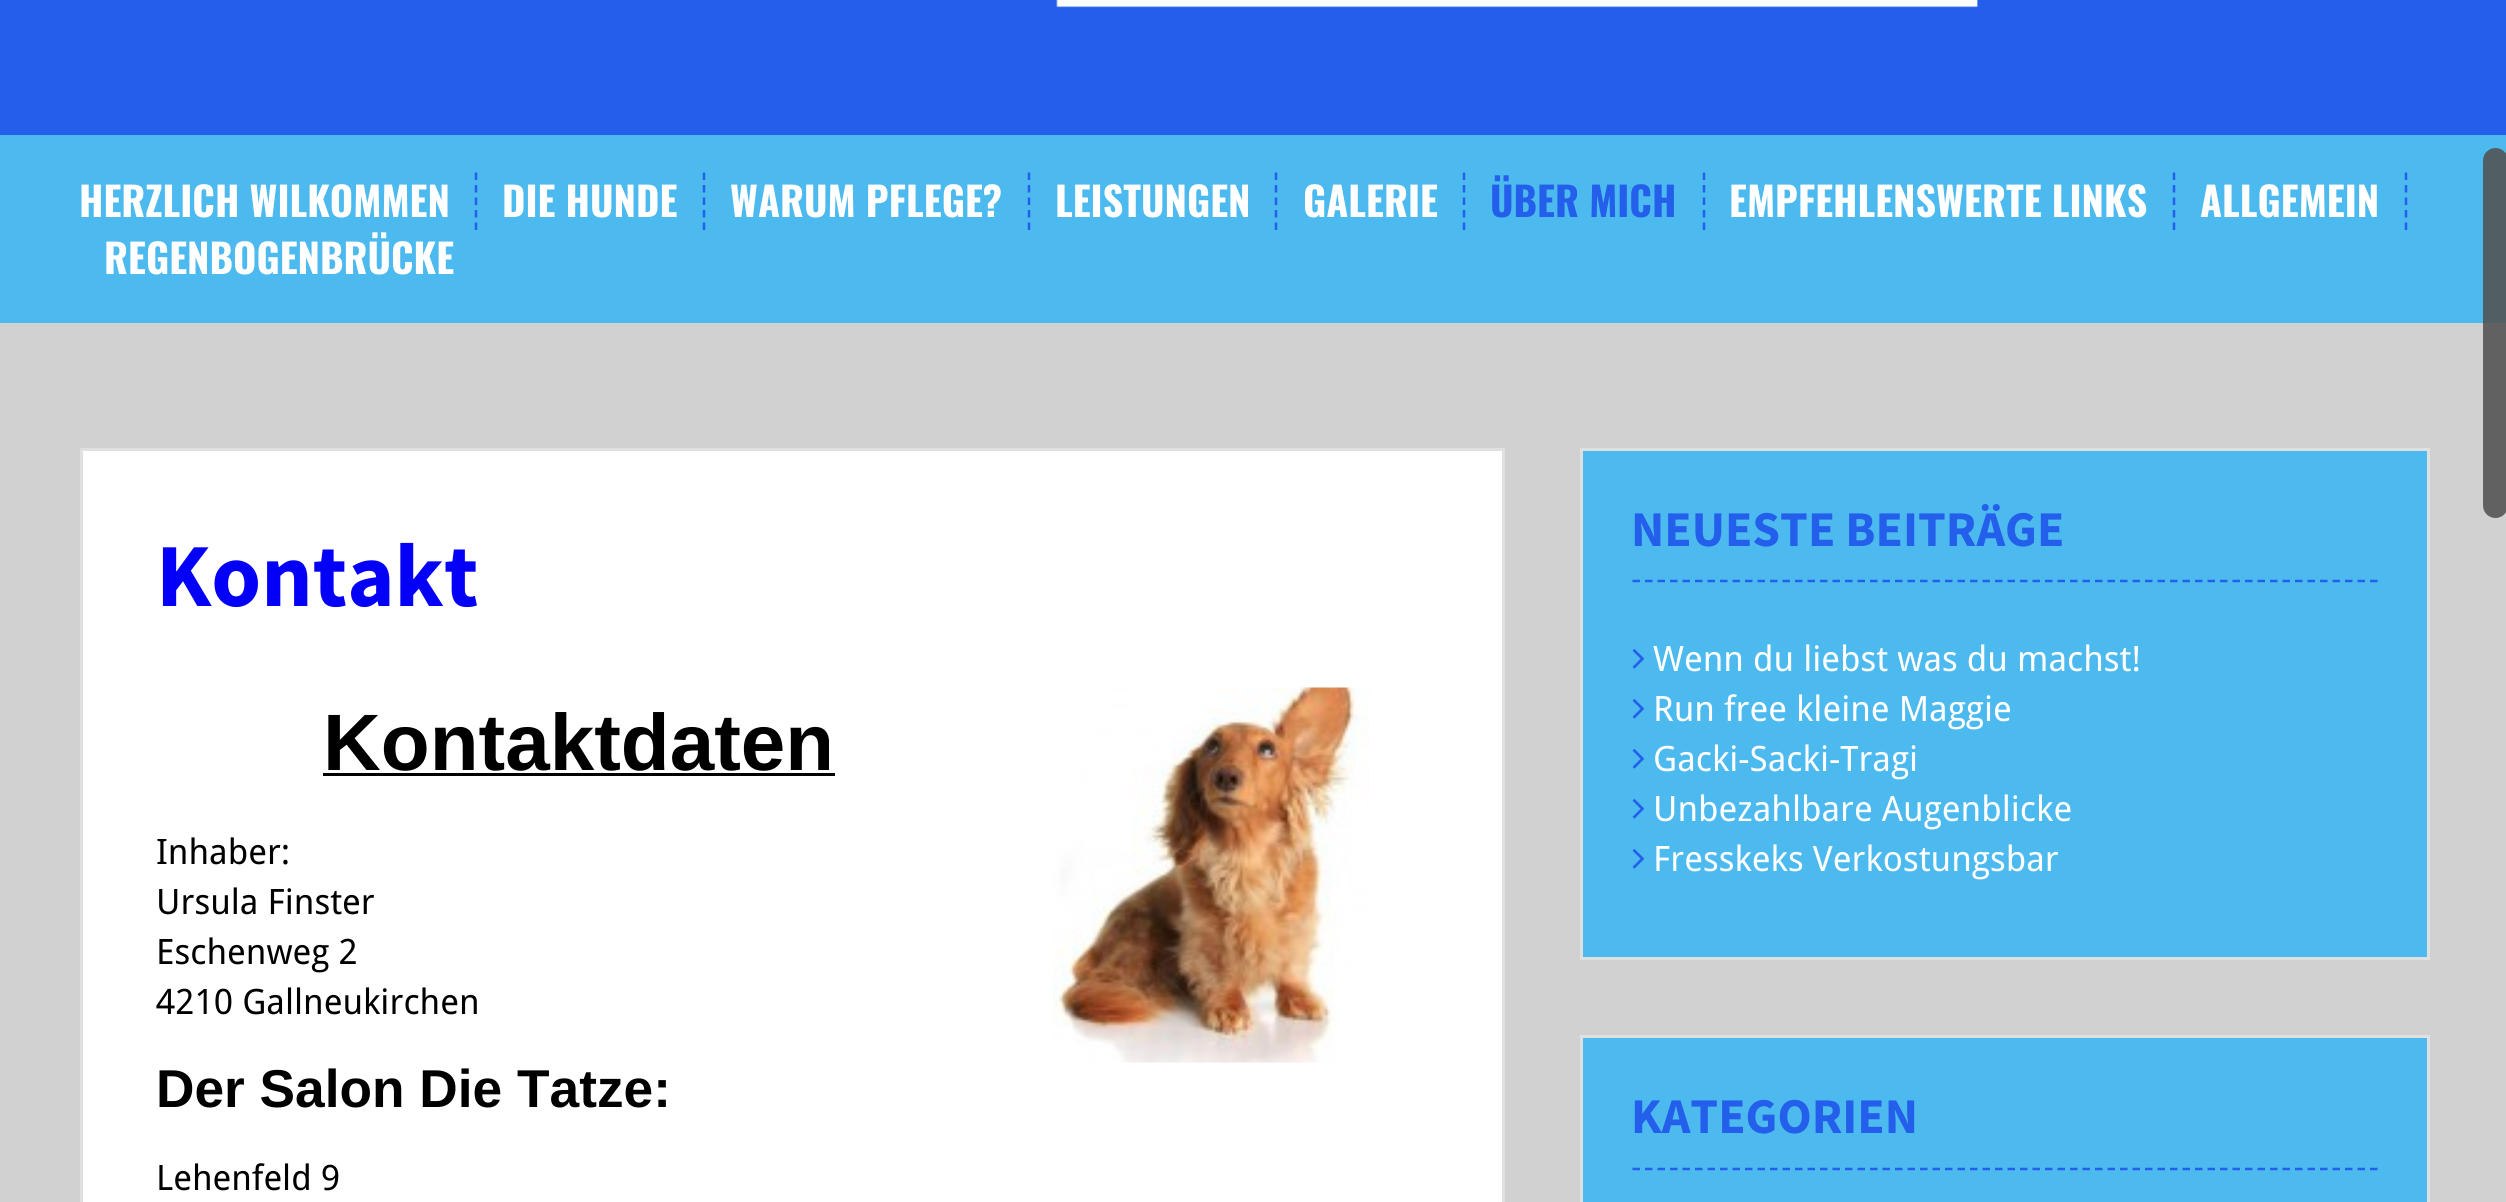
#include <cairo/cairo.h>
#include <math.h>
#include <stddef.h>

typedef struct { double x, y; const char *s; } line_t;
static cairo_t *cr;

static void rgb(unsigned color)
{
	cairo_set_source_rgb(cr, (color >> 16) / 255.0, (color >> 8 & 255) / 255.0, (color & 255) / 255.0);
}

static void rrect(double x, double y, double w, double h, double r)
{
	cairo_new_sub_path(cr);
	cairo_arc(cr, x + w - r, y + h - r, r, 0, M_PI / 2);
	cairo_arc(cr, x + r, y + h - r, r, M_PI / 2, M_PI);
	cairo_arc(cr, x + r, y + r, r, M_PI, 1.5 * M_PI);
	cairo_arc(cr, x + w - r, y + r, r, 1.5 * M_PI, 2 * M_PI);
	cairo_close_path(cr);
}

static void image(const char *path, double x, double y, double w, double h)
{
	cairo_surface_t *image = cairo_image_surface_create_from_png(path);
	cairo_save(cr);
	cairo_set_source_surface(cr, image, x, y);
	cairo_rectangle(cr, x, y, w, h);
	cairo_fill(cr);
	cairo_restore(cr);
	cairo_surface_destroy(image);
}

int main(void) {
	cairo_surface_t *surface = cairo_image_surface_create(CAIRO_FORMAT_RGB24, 2506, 1202);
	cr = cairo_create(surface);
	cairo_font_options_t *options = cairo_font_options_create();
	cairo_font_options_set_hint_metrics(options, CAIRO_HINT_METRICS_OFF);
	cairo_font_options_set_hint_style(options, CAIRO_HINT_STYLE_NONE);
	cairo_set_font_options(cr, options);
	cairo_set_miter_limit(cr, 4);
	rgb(0xd1d1d1);
	cairo_paint(cr);
	rgb(0x235fea);
	cairo_rectangle(cr, 0, 0, 2506, 135);
	cairo_fill(cr);
	image("img/1.png", 1056, 0, 922, 8);
	rgb(0x4cb9ef);
	cairo_rectangle(cr, 0, 135, 2506, 188);
	cairo_fill(cr);
	cairo_new_path(cr);
	cairo_move_to(cr, 476, 172.5);
	cairo_line_to(cr, 476, 230);
	rgb(0x235fea);
	cairo_set_line_width(cr, 2.5);
	cairo_set_dash(cr, (double[]){7.5, 5}, 2, 0);
	cairo_stroke(cr);
	cairo_new_path(cr);
	cairo_move_to(cr, 704, 172.5);
	cairo_line_to(cr, 704, 230);
	cairo_stroke(cr);
	cairo_new_path(cr);
	cairo_move_to(cr, 1029, 172.5);
	cairo_line_to(cr, 1029, 230);
	cairo_stroke(cr);
	cairo_new_path(cr);
	cairo_move_to(cr, 1276, 172.5);
	cairo_line_to(cr, 1276, 230);
	cairo_stroke(cr);
	cairo_new_path(cr);
	cairo_move_to(cr, 1464, 172.5);
	cairo_line_to(cr, 1464, 230);
	cairo_stroke(cr);
	cairo_new_path(cr);
	cairo_move_to(cr, 1704, 172.5);
	cairo_line_to(cr, 1704, 230);
	cairo_stroke(cr);
	cairo_new_path(cr);
	cairo_move_to(cr, 2174, 172.5);
	cairo_line_to(cr, 2174, 230);
	cairo_stroke(cr);
	cairo_new_path(cr);
	cairo_move_to(cr, 2406, 172.5);
	cairo_line_to(cr, 2406, 230);
	cairo_stroke(cr);
	rgb(0xffffff);
	cairo_rectangle(cr, 81.5, 449.5, 1422, 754);
	cairo_fill_preserve(cr);
	rgb(0xe0e0e0);
	cairo_set_line_width(cr, 3);
	cairo_set_dash(cr, NULL, 0, 0);
	cairo_stroke(cr);
	rgb(0x000000);
	cairo_rectangle(cr, 323, 773, 512, 3);
	cairo_fill(cr);
	image("img/2.png", 1052, 687, 318, 376);
	rgb(0x4cb9ef);
	cairo_rectangle(cr, 1581.5, 449.5, 847, 509);
	cairo_fill_preserve(cr);
	rgb(0xe0e0e0);
	cairo_stroke(cr);
	cairo_new_path(cr);
	cairo_move_to(cr, 1632.5, 581);
	cairo_line_to(cr, 2377.5, 581);
	rgb(0x235fea);
	cairo_set_line_width(cr, 2.5);
	cairo_set_dash(cr, (double[]){7.5, 5}, 2, 0);
	cairo_stroke(cr);
	image("img/3.png", 1632, 649, 12, 20);
	image("img/3.png", 1632, 699, 12, 20);
	image("img/3.png", 1632, 749, 12, 20);
	image("img/3.png", 1632, 799, 12, 20);
	image("img/3.png", 1632, 849, 12, 20);
	rgb(0x4cb9ef);
	cairo_rectangle(cr, 1581.5, 1036.5, 847, 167);
	cairo_fill_preserve(cr);
	rgb(0xe0e0e0);
	cairo_set_line_width(cr, 3);
	cairo_set_dash(cr, NULL, 0, 0);
	cairo_stroke(cr);
	cairo_new_path(cr);
	cairo_move_to(cr, 1632.5, 1169);
	cairo_line_to(cr, 2377.5, 1169);
	rgb(0x235fea);
	cairo_set_line_width(cr, 2.5);
	cairo_set_dash(cr, (double[]){7.5, 5}, 2, 0);
	cairo_stroke(cr);
	cairo_set_source_rgba(cr, 0.322, 0.322, 0.322, 0.88);
	rrect(2483, 148, 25, 370, 12.5);
	cairo_fill(cr);
	cairo_select_font_face(cr, "Oswald", CAIRO_FONT_SLANT_NORMAL, CAIRO_FONT_WEIGHT_BOLD);
	cairo_set_font_size(cr, 40);
	rgb(0xffffff);
	{
		static const line_t items[] = {
			{79, 217, "HERZLICH WILKOMMEN"},
			{502, 217, "DIE HUNDE"},
			{730, 217, "WARUM PFLEGE?"},
			{1055, 217, "LEISTUNGEN"},
			{1303, 217, "GALERIE"},
		};
		for (size_t i = 0; i < sizeof items / sizeof *items; i++) {
			cairo_move_to(cr, items[i].x, items[i].y);
			cairo_show_text(cr, items[i].s);
		}
	}
	rgb(0x235fea);
	cairo_move_to(cr, 1490, 217);
	cairo_show_text(cr, "ÜBER MICH");
	rgb(0xffffff);
	{
		static const line_t items[] = {
			{1729, 217, "EMPFEHLENSWERTE LINKS"},
			{2200, 217, "ALLGEMEIN"},
			{104, 274, "REGENBOGENBRÜCKE"},
		};
		for (size_t i = 0; i < sizeof items / sizeof *items; i++) {
			cairo_move_to(cr, items[i].x, items[i].y);
			cairo_show_text(cr, items[i].s);
		}
	}
	cairo_select_font_face(cr, "Source Sans Pro", CAIRO_FONT_SLANT_NORMAL, CAIRO_FONT_WEIGHT_BOLD);
	cairo_set_font_size(cr, 90);
	rgb(0x0400f7);
	cairo_move_to(cr, 156, 606);
	cairo_show_text(cr, "Kontakt");
	cairo_select_font_face(cr, "Liberation Sans", CAIRO_FONT_SLANT_NORMAL, CAIRO_FONT_WEIGHT_BOLD);
	cairo_set_font_size(cr, 80);
	rgb(0x000000);
	cairo_move_to(cr, 323, 770);
	cairo_show_text(cr, "Kontaktdaten");
	cairo_select_font_face(cr, "Droid Sans", CAIRO_FONT_SLANT_NORMAL, CAIRO_FONT_WEIGHT_NORMAL);
	cairo_set_font_size(cr, 35);
	{
		static const line_t items[] = {
			{156, 864, "Inhaber:"},
			{156, 914, "Ursula Finster"},
			{156, 964, "Eschenweg 2"},
			{156, 1014, "4210 Gallneukirchen"},
		};
		for (size_t i = 0; i < sizeof items / sizeof *items; i++) {
			cairo_move_to(cr, items[i].x, items[i].y);
			cairo_show_text(cr, items[i].s);
		}
	}
	cairo_select_font_face(cr, "Liberation Sans", CAIRO_FONT_SLANT_NORMAL, CAIRO_FONT_WEIGHT_BOLD);
	cairo_set_font_size(cr, 53.25);
	cairo_move_to(cr, 156, 1107);
	cairo_show_text(cr, "Der Salon Die Tatze:");
	cairo_select_font_face(cr, "Droid Sans", CAIRO_FONT_SLANT_NORMAL, CAIRO_FONT_WEIGHT_NORMAL);
	cairo_set_font_size(cr, 35);
	cairo_move_to(cr, 156, 1190);
	cairo_show_text(cr, "Lehenfeld 9");
	cairo_select_font_face(cr, "Source Sans Pro", CAIRO_FONT_SLANT_NORMAL, CAIRO_FONT_WEIGHT_BOLD);
	cairo_set_font_size(cr, 50);
	rgb(0x235fea);
	cairo_move_to(cr, 1631, 546);
	cairo_show_text(cr, "NEUESTE BEITRÄGE");
	cairo_select_font_face(cr, "Droid Sans", CAIRO_FONT_SLANT_NORMAL, CAIRO_FONT_WEIGHT_NORMAL);
	cairo_set_font_size(cr, 35);
	rgb(0xffffff);
	{
		static const line_t items[] = {
			{1653, 671, "Wenn du liebst was du machst!"},
			{1653, 721, "Run free kleine Maggie"},
			{1653, 771, "Gacki-Sacki-Tragi"},
			{1653, 821, "Unbezahlbare Augenblicke"},
			{1653, 871, "Fresskeks Verkostungsbar"},
		};
		for (size_t i = 0; i < sizeof items / sizeof *items; i++) {
			cairo_move_to(cr, items[i].x, items[i].y);
			cairo_show_text(cr, items[i].s);
		}
	}
	cairo_select_font_face(cr, "Source Sans Pro", CAIRO_FONT_SLANT_NORMAL, CAIRO_FONT_WEIGHT_BOLD);
	cairo_set_font_size(cr, 50);
	rgb(0x235fea);
	cairo_move_to(cr, 1631, 1133);
	cairo_show_text(cr, "KATEGORIEN");
	cairo_surface_write_to_png(surface, "page.png");
	cairo_font_options_destroy(options);
	cairo_destroy(cr);
	cairo_surface_destroy(surface);
	return 0;
}
